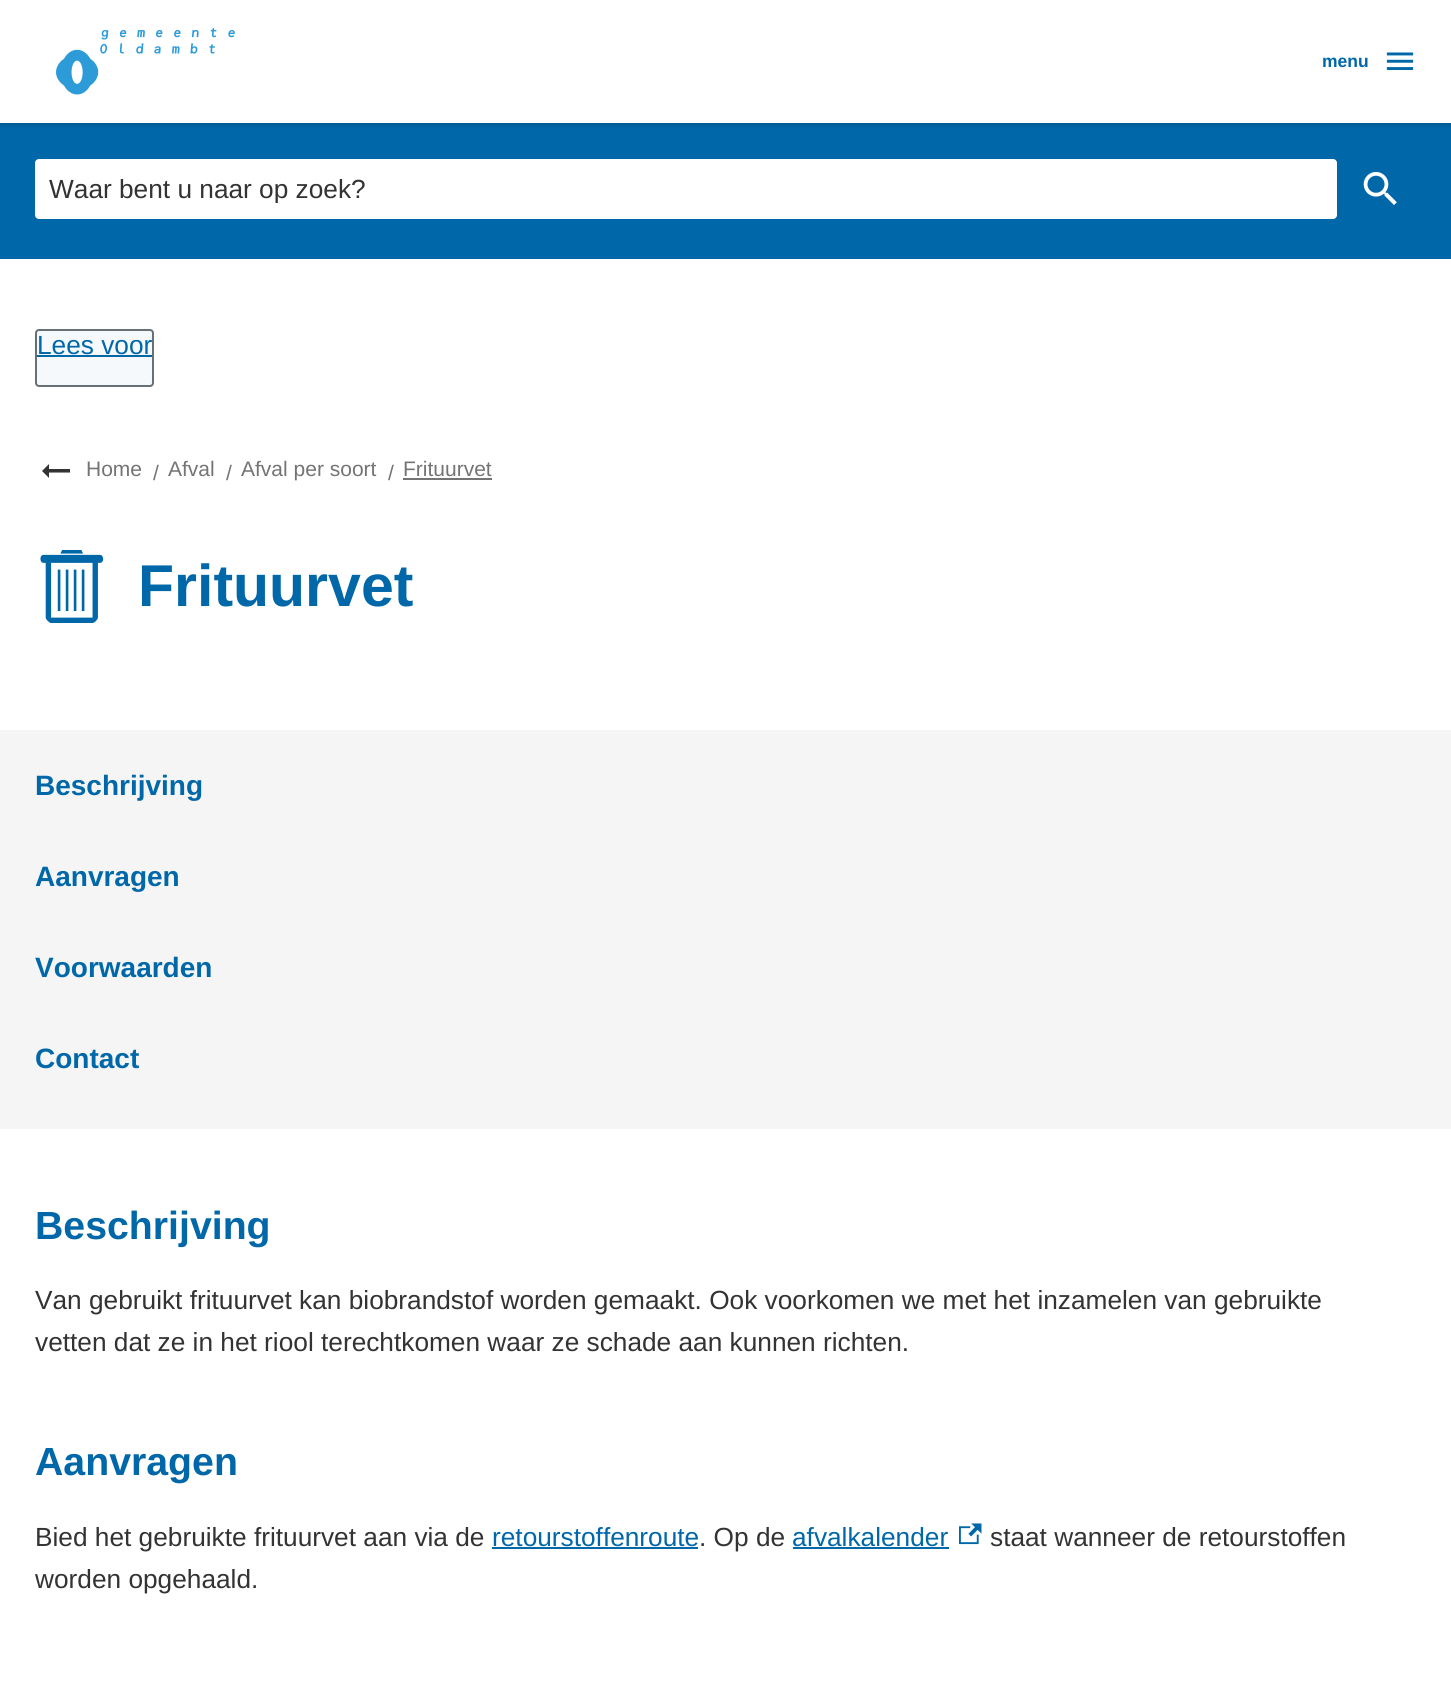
#include <cairo/cairo.h>
#include <math.h>
#include <stddef.h>

typedef struct { double x, y; const char *s; } line_t;
typedef struct { double x, y, w, h; unsigned color; } box_t;
static cairo_t *cr;

static void rgb(unsigned color)
{
	cairo_set_source_rgb(cr, (color >> 16) / 255.0, (color >> 8 & 255) / 255.0, (color & 255) / 255.0);
}

static void rrect(double x, double y, double w, double h, double r)
{
	cairo_new_sub_path(cr);
	cairo_arc(cr, x + w - r, y + h - r, r, 0, M_PI / 2);
	cairo_arc(cr, x + r, y + h - r, r, M_PI / 2, M_PI);
	cairo_arc(cr, x + r, y + r, r, M_PI, 1.5 * M_PI);
	cairo_arc(cr, x + w - r, y + r, r, 1.5 * M_PI, 2 * M_PI);
	cairo_close_path(cr);
}

static void soft_shadow(double x, double y, double w, double h, double r, double blur, double alpha)
{
	cairo_push_group_with_content(cr, CAIRO_CONTENT_ALPHA);
	cairo_set_operator(cr, CAIRO_OPERATOR_SOURCE);
	for (int i = 15; i >= -15 && fmin(w, h) + blur * i / 3 > 0; i -= 2) {
		double e = blur * i / 6;
		cairo_set_source_rgba(cr, 0, 0, 0, alpha * erfc((i - 1) / 8.5) / 2);
		rrect(x - e, y - e, w + 2 * e, h + 2 * e, fmax(0, fmin(r + e + blur * .6, fmin(w, h) / 2 + e)));
		cairo_fill(cr);
	}
	cairo_pattern_t *soft = cairo_pop_group(cr);
	cairo_mask(cr, soft);
	cairo_pattern_destroy(soft);
}

static void image(const char *path, double x, double y, double w, double h)
{
	cairo_surface_t *image = cairo_image_surface_create_from_png(path);
	cairo_save(cr);
	cairo_set_source_surface(cr, image, x, y);
	cairo_rectangle(cr, x, y, w, h);
	cairo_fill(cr);
	cairo_restore(cr);
	cairo_surface_destroy(image);
}

int main(void) {
	cairo_surface_t *surface = cairo_image_surface_create(CAIRO_FORMAT_RGB24, 1451, 1684);
	cr = cairo_create(surface);
	cairo_font_options_t *options = cairo_font_options_create();
	cairo_font_options_set_hint_metrics(options, CAIRO_HINT_METRICS_OFF);
	cairo_font_options_set_hint_style(options, CAIRO_HINT_STYLE_NONE);
	cairo_set_font_options(cr, options);
	cairo_set_miter_limit(cr, 4);
	rgb(0xffffff);
	cairo_paint(cr);
	rgb(0x0067a8);
	cairo_rectangle(cr, 0, 123, 1451, 136);
	cairo_fill(cr);
	rgb(0x000000);
	soft_shadow(0, 2, 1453, 122, 0, 2.5, 0.2);
	rgb(0xffffff);
	cairo_rectangle(cr, 0, 0, 1451, 123);
	cairo_fill(cr);
	image("img/1.png", 56, 28, 179, 67);
	image("img/2.png", 1386, 52, 28, 18);
	rrect(35, 159, 1302, 60, 4);
	cairo_fill(cr);
	image("img/3.png", 1363, 172, 34, 33);
	rgb(0xf6f9fc);
	rrect(36, 330, 117, 56, 3);
	cairo_fill_preserve(cr);
	rgb(0x677077);
	cairo_stroke(cr);
	rgb(0x0067a8);
	cairo_rectangle(cr, 37, 355, 115, 2);
	cairo_fill(cr);
	rgb(0x333333);
	cairo_new_path(cr);
	cairo_move_to(cr, 49, 472.5);
	cairo_line_to(cr, 70, 472.5);
	cairo_line_to(cr, 70, 469);
	cairo_line_to(cr, 49, 469);
	cairo_line_to(cr, 49, 464);
	cairo_line_to(cr, 42, 471);
	cairo_line_to(cr, 49, 478);
	cairo_close_path(cr);
	cairo_fill(cr);
	rgb(0x747474);
	cairo_rectangle(cr, 403, 478, 89, 2);
	cairo_fill(cr);
	image("img/4.png", 40, 550, 64, 73);
	{
		static const box_t items[] = {
			{0, 730, 1451, 399, 0xf5f5f5},
			{492, 1547, 206, 2, 0x0067a8},
			{793, 1547, 156, 2, 0x0067a8},
		};
		for (size_t i = 0; i < sizeof items / sizeof *items; i++) {
			rgb(items[i].color);
			cairo_rectangle(cr, items[i].x, items[i].y, items[i].w, items[i].h);
			cairo_fill(cr);
		}
	}
	image("img/5.png", 959, 1523, 23, 22);
	cairo_select_font_face(cr, "Liberation Sans", CAIRO_FONT_SLANT_NORMAL, CAIRO_FONT_WEIGHT_BOLD);
	cairo_set_font_size(cr, 17.5);
	cairo_move_to(cr, 1322, 67);
	cairo_show_text(cr, "menu");
	cairo_save(cr);
	cairo_rectangle(cr, 49, 173, 1274, 30);
	cairo_clip(cr);
	cairo_select_font_face(cr, "Liberation Sans", CAIRO_FONT_SLANT_NORMAL, CAIRO_FONT_WEIGHT_NORMAL);
	cairo_set_font_size(cr, 26.25);
	rgb(0x333333);
	cairo_move_to(cr, 49, 198);
	cairo_show_text(cr, "Waar bent u naar op zoek?");
	cairo_restore(cr);
	cairo_select_font_face(cr, "Liberation Sans", CAIRO_FONT_SLANT_NORMAL, CAIRO_FONT_WEIGHT_NORMAL);
	cairo_set_font_size(cr, 26.25);
	cairo_move_to(cr, 37, 354);
	cairo_show_text(cr, "Lees voor");
	cairo_set_font_size(cr, 21);
	rgb(0x747474);
	{
		static const line_t items[] = {
			{86, 476, "Home"},
			{153, 480, "/"},
			{168, 476, "Afval"},
			{226, 480, "/"},
			{241, 476, "Afval per soort"},
			{388, 480, "/"},
			{403, 476, "Frituurvet"},
		};
		for (size_t i = 0; i < sizeof items / sizeof *items; i++) {
			cairo_move_to(cr, items[i].x, items[i].y);
			cairo_show_text(cr, items[i].s);
		}
	}
	cairo_select_font_face(cr, "Liberation Sans", CAIRO_FONT_SLANT_NORMAL, CAIRO_FONT_WEIGHT_BOLD);
	cairo_set_font_size(cr, 59);
	rgb(0x0067a8);
	cairo_move_to(cr, 138, 606);
	cairo_show_text(cr, "Frituurvet");
	cairo_set_font_size(cr, 28);
	{
		static const line_t items[] = {
			{35, 795, "Beschrijving"},
			{35, 886, "Aanvragen"},
			{35, 977, "Voorwaarden"},
			{35, 1068, "Contact"},
		};
		for (size_t i = 0; i < sizeof items / sizeof *items; i++) {
			cairo_move_to(cr, items[i].x, items[i].y);
			cairo_show_text(cr, items[i].s);
		}
	}
	cairo_set_font_size(cr, 39.25);
	cairo_move_to(cr, 35, 1239);
	cairo_show_text(cr, "Beschrijving");
	cairo_select_font_face(cr, "Liberation Sans", CAIRO_FONT_SLANT_NORMAL, CAIRO_FONT_WEIGHT_NORMAL);
	cairo_set_font_size(cr, 26.25);
	rgb(0x333333);
	cairo_move_to(cr, 35, 1309);
	cairo_show_text(cr, "Van gebruikt frituurvet kan biobrandstof worden gemaakt. Ook voorkomen we met het inzamelen van gebruikte");
	cairo_move_to(cr, 35, 1351);
	cairo_show_text(cr, "vetten dat ze in het riool terechtkomen waar ze schade aan kunnen richten.");
	cairo_select_font_face(cr, "Liberation Sans", CAIRO_FONT_SLANT_NORMAL, CAIRO_FONT_WEIGHT_BOLD);
	cairo_set_font_size(cr, 39.25);
	rgb(0x0067a8);
	cairo_move_to(cr, 35, 1475);
	cairo_show_text(cr, "Aanvragen");
	cairo_select_font_face(cr, "Liberation Sans", CAIRO_FONT_SLANT_NORMAL, CAIRO_FONT_WEIGHT_NORMAL);
	cairo_set_font_size(cr, 26.25);
	rgb(0x333333);
	cairo_move_to(cr, 35, 1546);
	cairo_show_text(cr, "Bied het gebruikte frituurvet aan via de");
	rgb(0x0067a8);
	cairo_move_to(cr, 492, 1546);
	cairo_show_text(cr, "retourstoffenroute");
	rgb(0x333333);
	cairo_move_to(cr, 699, 1546);
	cairo_show_text(cr, ". Op de");
	rgb(0x0067a8);
	cairo_move_to(cr, 792, 1546);
	cairo_show_text(cr, "afvalkalender");
	rgb(0x333333);
	cairo_move_to(cr, 990, 1546);
	cairo_show_text(cr, "staat wanneer de retourstoffen");
	cairo_move_to(cr, 35, 1588);
	cairo_show_text(cr, "worden opgehaald.");
	cairo_surface_write_to_png(surface, "page.png");
	cairo_font_options_destroy(options);
	cairo_destroy(cr);
	cairo_surface_destroy(surface);
	return 0;
}
